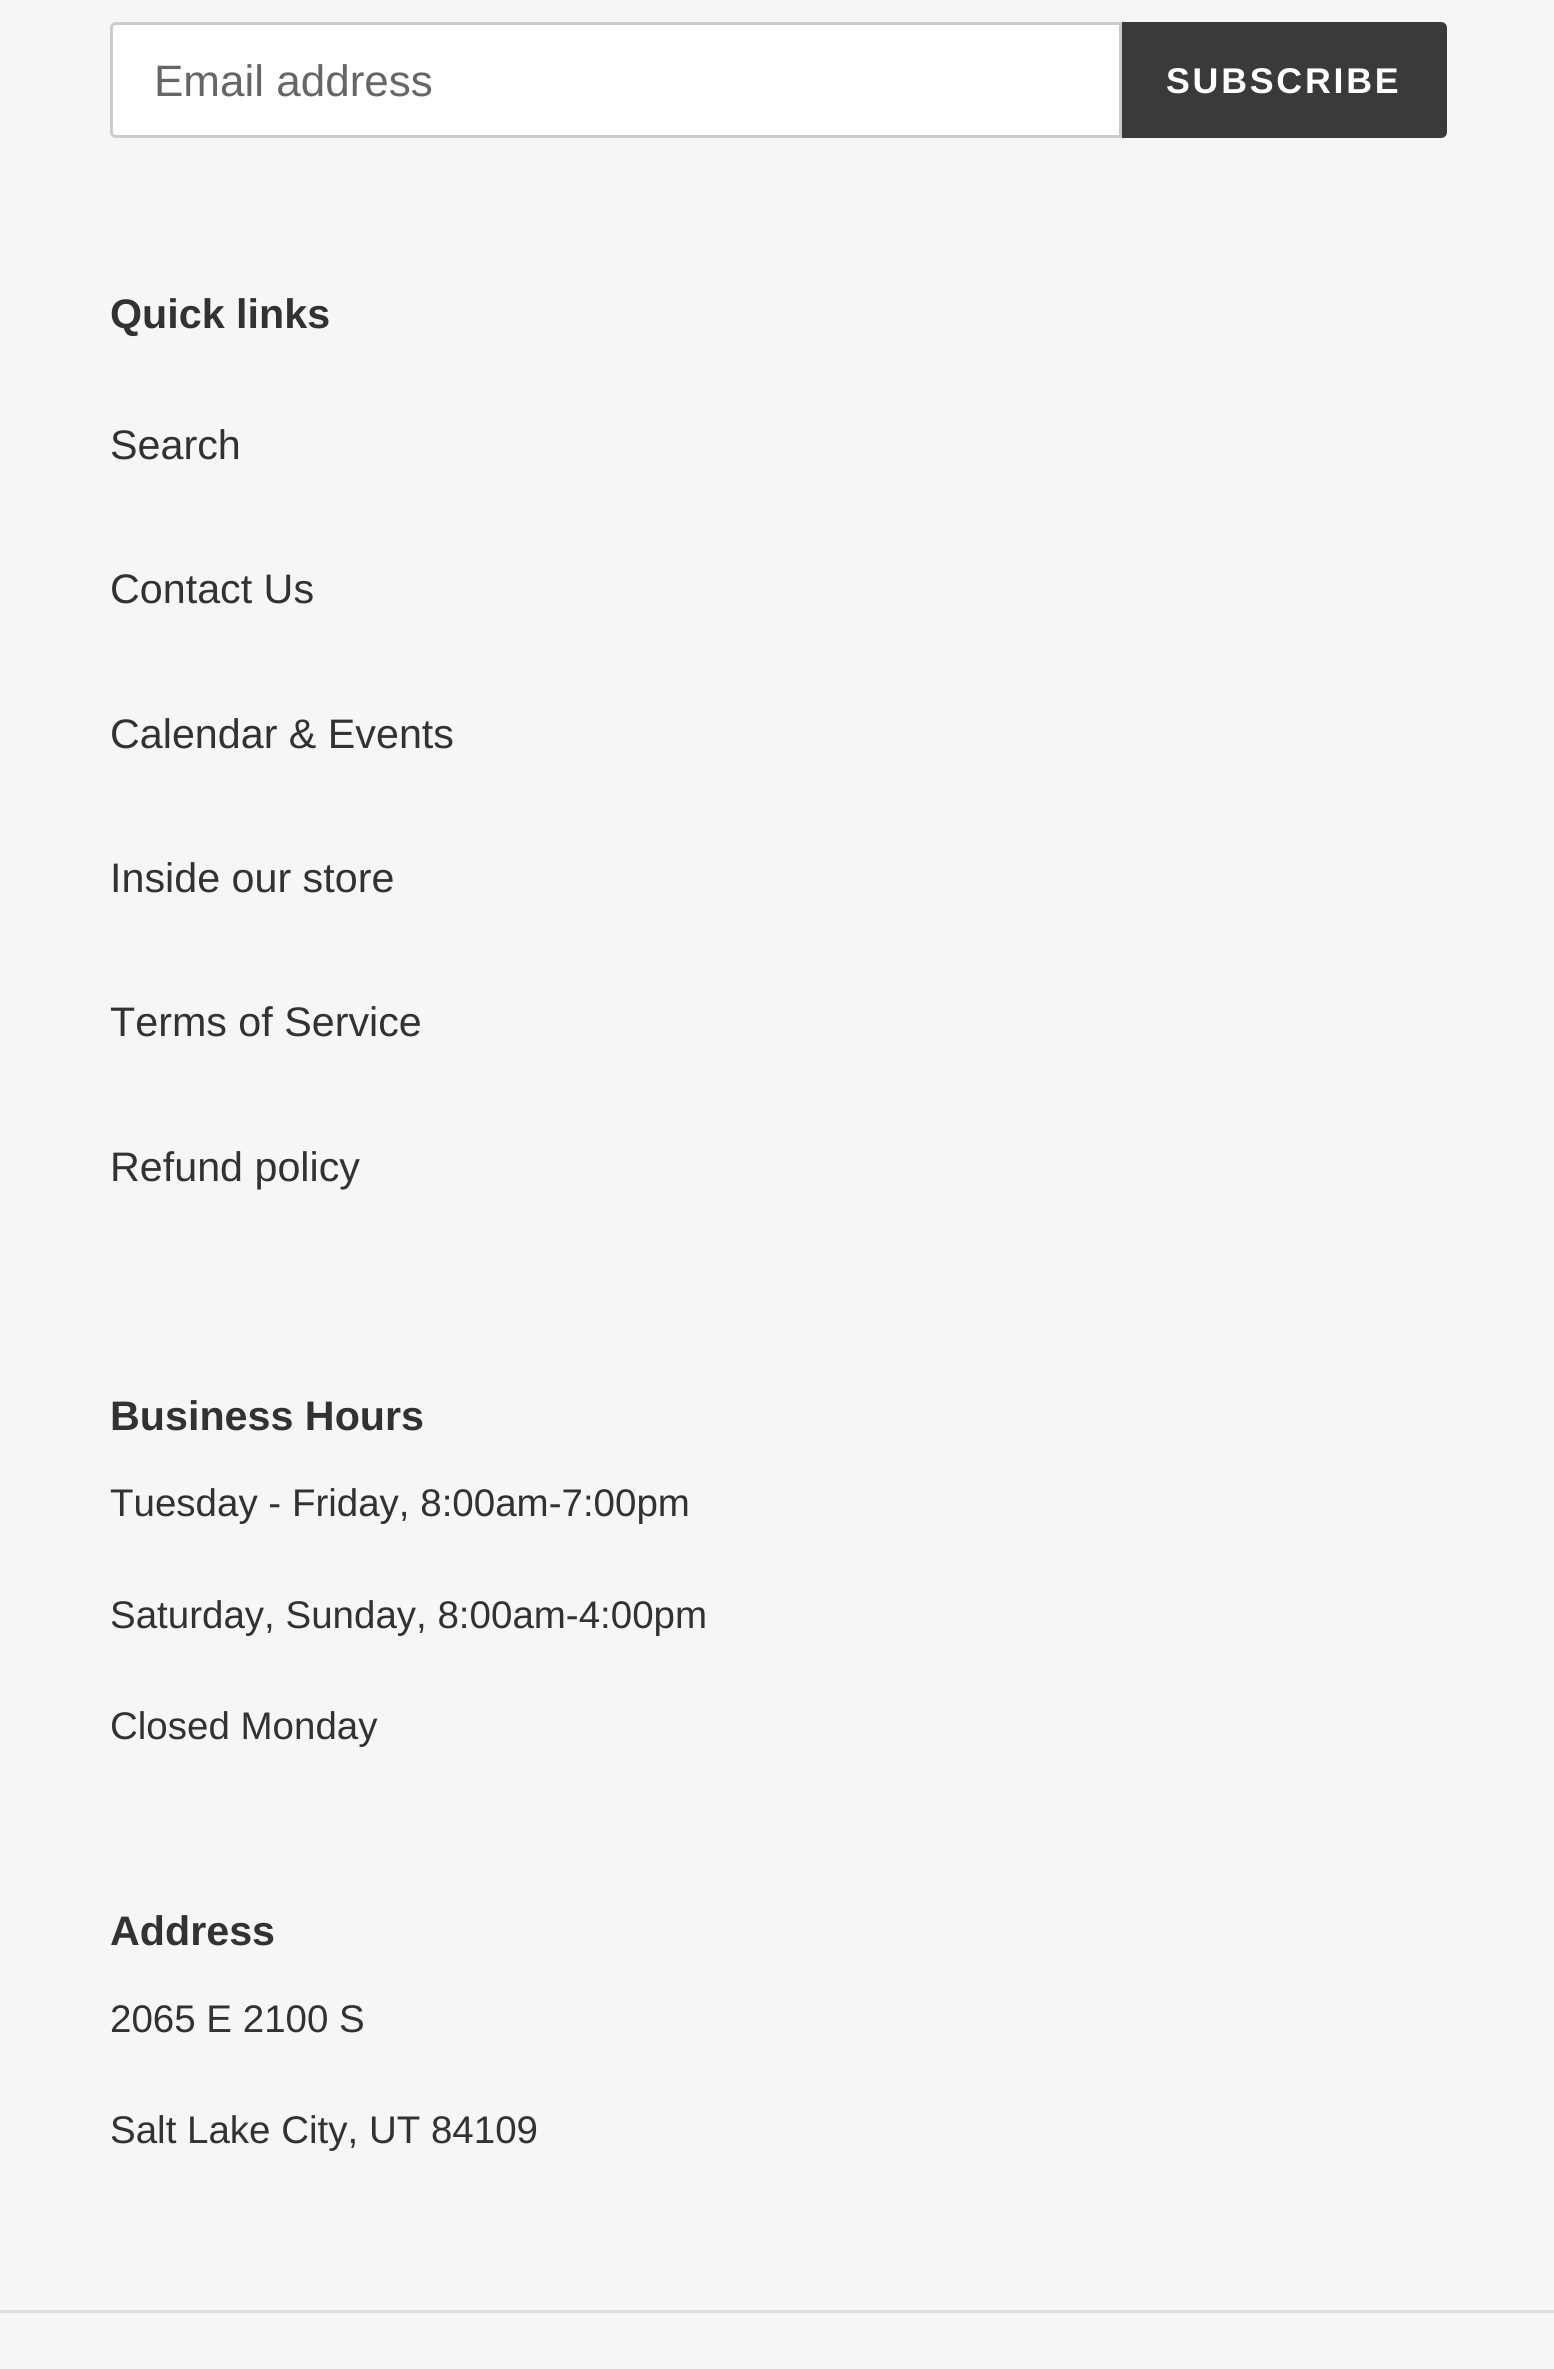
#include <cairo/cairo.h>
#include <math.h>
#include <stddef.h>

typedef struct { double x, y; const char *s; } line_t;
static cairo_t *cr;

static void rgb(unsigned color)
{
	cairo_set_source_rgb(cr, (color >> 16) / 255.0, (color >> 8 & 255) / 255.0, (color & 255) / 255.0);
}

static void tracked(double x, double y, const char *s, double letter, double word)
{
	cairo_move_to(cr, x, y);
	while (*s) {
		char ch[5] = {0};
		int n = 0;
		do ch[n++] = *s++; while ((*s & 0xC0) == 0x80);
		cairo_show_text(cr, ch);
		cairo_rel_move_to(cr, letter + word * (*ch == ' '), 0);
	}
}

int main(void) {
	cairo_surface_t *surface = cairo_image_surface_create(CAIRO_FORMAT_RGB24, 1554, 2369);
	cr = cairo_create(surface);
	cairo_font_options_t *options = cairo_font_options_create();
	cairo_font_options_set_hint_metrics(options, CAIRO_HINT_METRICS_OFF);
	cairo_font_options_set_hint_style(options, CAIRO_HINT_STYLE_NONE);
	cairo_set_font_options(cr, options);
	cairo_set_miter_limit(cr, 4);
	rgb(0xf6f6f6);
	cairo_paint(cr);
	rgb(0xffffff);
	cairo_new_path(cr);
	cairo_move_to(cr, 116, 23.5);
	cairo_line_to(cr, 1120.5, 23.5);
	cairo_line_to(cr, 1120.5, 136.5);
	cairo_line_to(cr, 116, 136.5);
	cairo_curve_to(cr, 113.5, 136.5, 111.5, 134.5, 111.5, 132);
	cairo_line_to(cr, 111.5, 28);
	cairo_curve_to(cr, 111.5, 25.5, 113.5, 23.5, 116, 23.5);
	cairo_close_path(cr);
	cairo_fill_preserve(cr);
	rgb(0xcccccc);
	cairo_set_line_width(cr, 3);
	cairo_stroke(cr);
	rgb(0x3a3a3a);
	cairo_new_path(cr);
	cairo_move_to(cr, 1122, 22);
	cairo_line_to(cr, 1441, 22);
	cairo_curve_to(cr, 1444.5, 22, 1447, 24.5, 1447, 28);
	cairo_line_to(cr, 1447, 132);
	cairo_curve_to(cr, 1447, 135.5, 1444.5, 138, 1441, 138);
	cairo_line_to(cr, 1122, 138);
	cairo_close_path(cr);
	cairo_fill(cr);
	rgb(0xdddddd);
	cairo_rectangle(cr, 0, 2310, 1554, 3);
	cairo_fill(cr);
	cairo_select_font_face(cr, "Liberation Sans", CAIRO_FONT_SLANT_NORMAL, CAIRO_FONT_WEIGHT_NORMAL);
	cairo_set_font_size(cr, 44);
	rgb(0x666666);
	cairo_move_to(cr, 154, 96);
	cairo_show_text(cr, "Email address");
	cairo_select_font_face(cr, "Liberation Sans", CAIRO_FONT_SLANT_NORMAL, CAIRO_FONT_WEIGHT_BOLD);
	cairo_set_font_size(cr, 35.75);
	rgb(0xffffff);
	tracked(1166, 93, "SUBSCRIBE", 2.75, 0);
	cairo_set_font_size(cr, 41.25);
	rgb(0x333232);
	cairo_move_to(cr, 110, 328);
	cairo_show_text(cr, "Quick links");
	cairo_select_font_face(cr, "Liberation Sans", CAIRO_FONT_SLANT_NORMAL, CAIRO_FONT_WEIGHT_NORMAL);
	{
		static const line_t items[] = {
			{110, 459, "Search"},
			{110, 603, "Contact Us"},
			{110, 748, "Calendar & Events"},
			{110, 892, "Inside our store"},
			{110, 1036, "Terms of Service"},
			{110, 1181, "Refund policy"},
		};
		for (size_t i = 0; i < sizeof items / sizeof *items; i++) {
			cairo_move_to(cr, items[i].x, items[i].y);
			cairo_show_text(cr, items[i].s);
		}
	}
	cairo_select_font_face(cr, "Liberation Sans", CAIRO_FONT_SLANT_NORMAL, CAIRO_FONT_WEIGHT_BOLD);
	cairo_move_to(cr, 110, 1430);
	cairo_show_text(cr, "Business Hours");
	cairo_select_font_face(cr, "Liberation Sans", CAIRO_FONT_SLANT_NORMAL, CAIRO_FONT_WEIGHT_NORMAL);
	cairo_set_font_size(cr, 38.5);
	{
		static const line_t items[] = {
			{110, 1516, "Tuesday - Friday, 8:00am-7:00pm"},
			{110, 1628, "Saturday, Sunday, 8:00am-4:00pm"},
			{110, 1739, "Closed Monday"},
		};
		for (size_t i = 0; i < sizeof items / sizeof *items; i++) {
			cairo_move_to(cr, items[i].x, items[i].y);
			cairo_show_text(cr, items[i].s);
		}
	}
	cairo_select_font_face(cr, "Liberation Sans", CAIRO_FONT_SLANT_NORMAL, CAIRO_FONT_WEIGHT_BOLD);
	cairo_set_font_size(cr, 41.25);
	cairo_move_to(cr, 110, 1945);
	cairo_show_text(cr, "Address");
	cairo_select_font_face(cr, "Liberation Sans", CAIRO_FONT_SLANT_NORMAL, CAIRO_FONT_WEIGHT_NORMAL);
	cairo_set_font_size(cr, 38.5);
	cairo_move_to(cr, 110, 2032);
	cairo_show_text(cr, "2065 E 2100 S");
	cairo_move_to(cr, 110, 2143);
	cairo_show_text(cr, "Salt Lake City, UT 84109");
	cairo_surface_write_to_png(surface, "page.png");
	cairo_font_options_destroy(options);
	cairo_destroy(cr);
	cairo_surface_destroy(surface);
	return 0;
}
